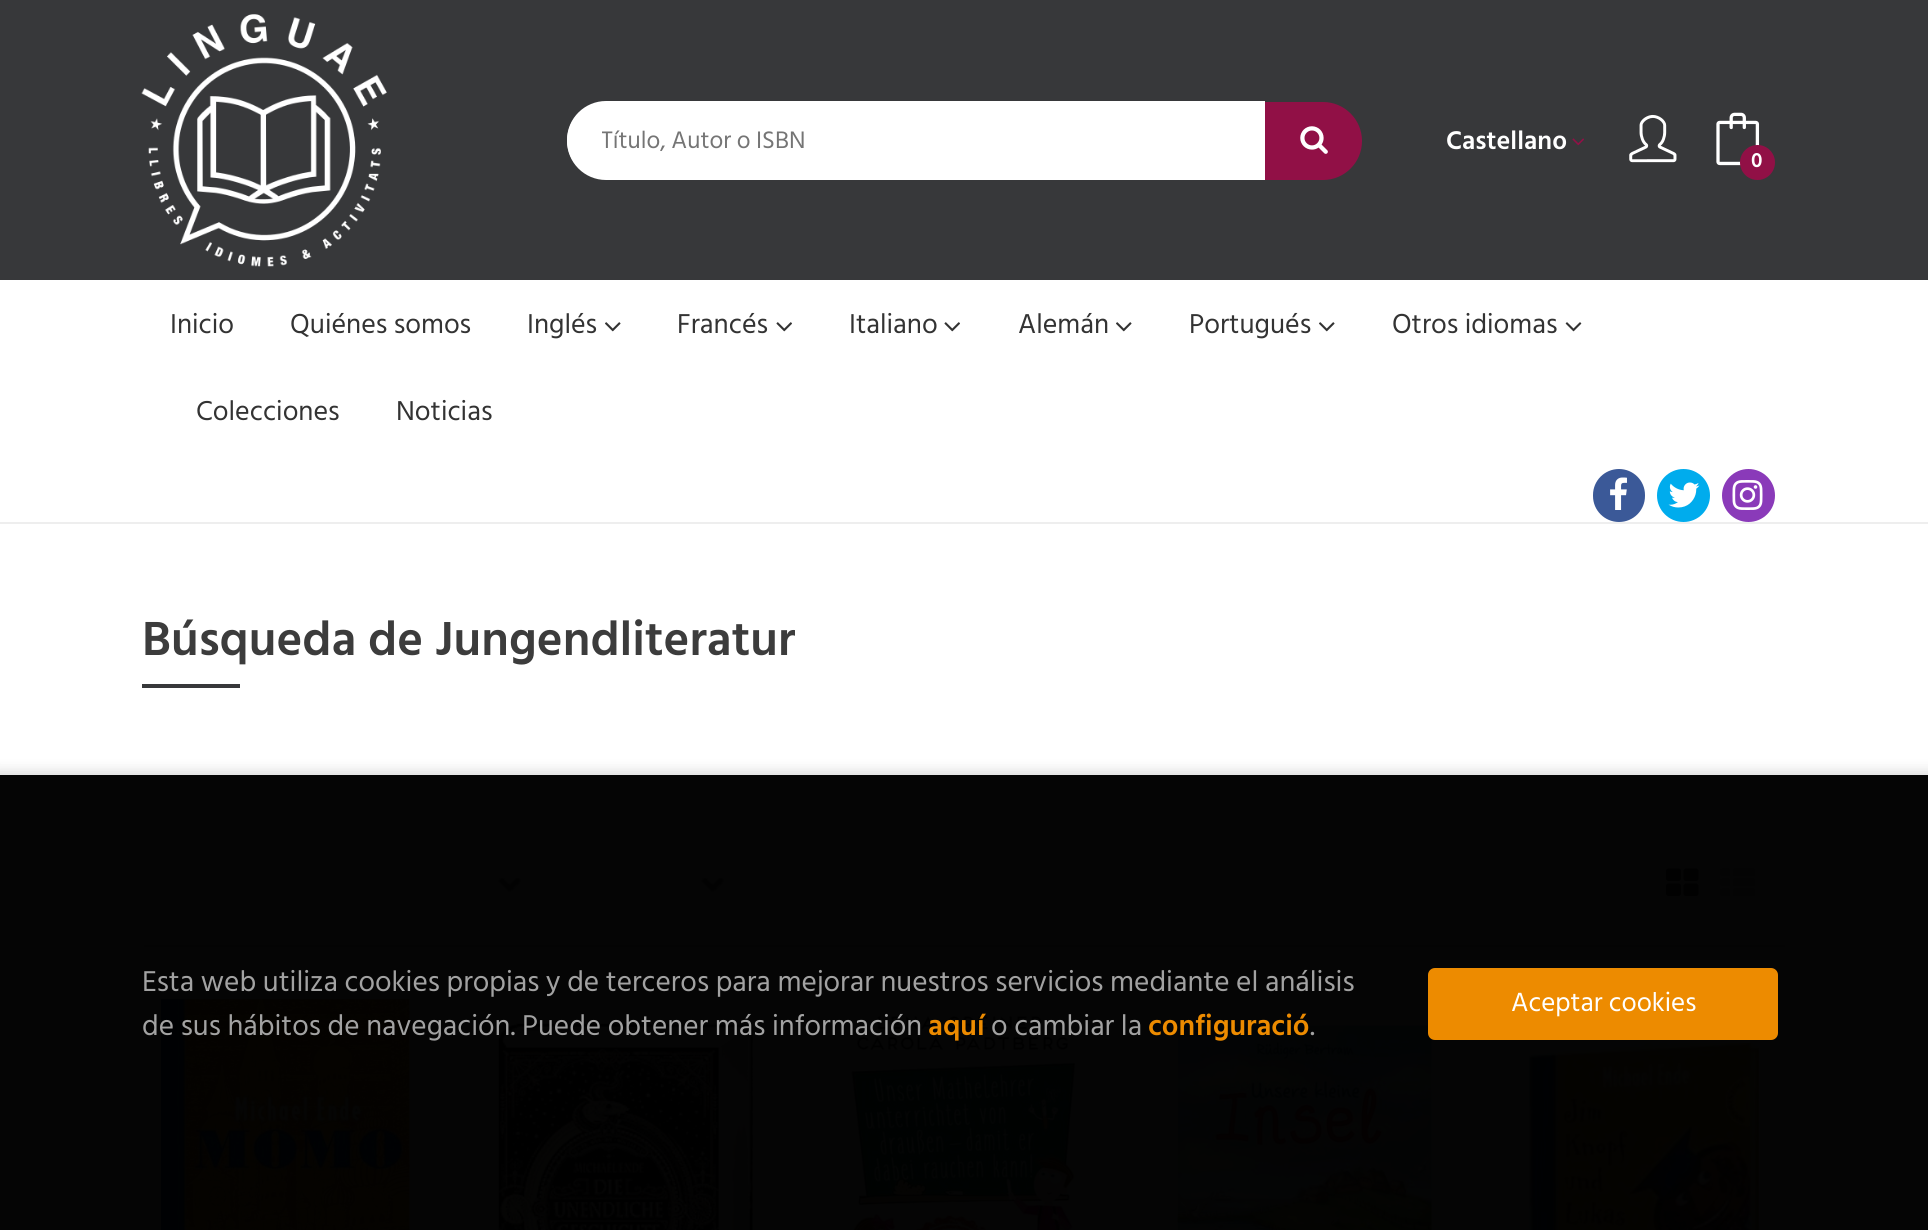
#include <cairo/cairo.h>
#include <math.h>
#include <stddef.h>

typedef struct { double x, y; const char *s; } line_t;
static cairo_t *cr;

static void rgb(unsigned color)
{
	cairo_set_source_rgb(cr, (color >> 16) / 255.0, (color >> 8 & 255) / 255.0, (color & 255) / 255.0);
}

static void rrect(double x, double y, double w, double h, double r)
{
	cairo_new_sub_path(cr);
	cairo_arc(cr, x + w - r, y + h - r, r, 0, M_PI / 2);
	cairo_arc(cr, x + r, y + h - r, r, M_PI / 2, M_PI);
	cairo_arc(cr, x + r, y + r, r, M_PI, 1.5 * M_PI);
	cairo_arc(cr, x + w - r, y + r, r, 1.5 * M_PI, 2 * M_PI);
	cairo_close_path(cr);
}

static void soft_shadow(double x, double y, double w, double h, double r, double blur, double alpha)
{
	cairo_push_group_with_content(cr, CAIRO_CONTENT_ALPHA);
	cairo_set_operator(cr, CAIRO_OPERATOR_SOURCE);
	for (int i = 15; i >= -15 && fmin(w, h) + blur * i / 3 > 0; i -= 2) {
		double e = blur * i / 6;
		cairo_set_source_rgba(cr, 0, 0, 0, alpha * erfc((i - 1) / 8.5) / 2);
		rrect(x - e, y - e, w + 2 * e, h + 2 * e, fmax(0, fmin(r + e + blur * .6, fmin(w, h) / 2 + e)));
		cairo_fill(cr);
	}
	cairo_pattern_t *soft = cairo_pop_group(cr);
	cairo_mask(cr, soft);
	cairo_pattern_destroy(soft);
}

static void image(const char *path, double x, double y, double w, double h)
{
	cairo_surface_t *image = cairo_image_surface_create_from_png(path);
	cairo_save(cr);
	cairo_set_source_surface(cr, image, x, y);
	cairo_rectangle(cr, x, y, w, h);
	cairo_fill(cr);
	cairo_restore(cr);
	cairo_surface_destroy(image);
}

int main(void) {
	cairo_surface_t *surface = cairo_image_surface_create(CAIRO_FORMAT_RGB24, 1928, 1230);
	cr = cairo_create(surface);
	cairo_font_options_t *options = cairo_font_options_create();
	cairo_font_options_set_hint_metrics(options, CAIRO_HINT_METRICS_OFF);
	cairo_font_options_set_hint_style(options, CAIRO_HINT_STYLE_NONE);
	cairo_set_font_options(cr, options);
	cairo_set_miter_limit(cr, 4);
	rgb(0xffffff);
	cairo_paint(cr);
	rgb(0x37383a);
	cairo_rectangle(cr, 0, 0, 1928, 280);
	cairo_fill(cr);
	image("img/1.png", 141, 14, 246, 253);
	rgb(0xffffff);
	cairo_new_path(cr);
	cairo_move_to(cr, 606, 102);
	cairo_line_to(cr, 1265, 102);
	cairo_line_to(cr, 1265, 180);
	cairo_line_to(cr, 606, 180);
	cairo_curve_to(cr, 584.5, 180, 567, 162.5, 567, 141);
	cairo_curve_to(cr, 567, 119.5, 584.5, 102, 606, 102);
	cairo_close_path(cr);
	cairo_fill(cr);
	cairo_set_fill_rule(cr, CAIRO_FILL_RULE_EVEN_ODD);
	cairo_new_path(cr);
	cairo_move_to(cr, 606, 101);
	cairo_line_to(cr, 1265, 101);
	cairo_line_to(cr, 1265, 179);
	cairo_line_to(cr, 606, 179);
	cairo_curve_to(cr, 585, 179, 567, 162, 567, 140);
	cairo_curve_to(cr, 567, 118, 585, 101, 606, 101);
	cairo_close_path(cr);
	cairo_move_to(cr, 606, 104);
	cairo_line_to(cr, 1265, 104);
	cairo_line_to(cr, 1265, 176);
	cairo_line_to(cr, 606, 176);
	cairo_curve_to(cr, 587, 176, 570, 160, 570, 140);
	cairo_curve_to(cr, 570, 120, 587, 104, 606, 104);
	cairo_close_path(cr);
	cairo_fill(cr);
	rgb(0x911046);
	cairo_new_path(cr);
	cairo_move_to(cr, 1265, 102);
	cairo_line_to(cr, 1323, 102);
	cairo_curve_to(cr, 1344.5, 102, 1362, 119.5, 1362, 141);
	cairo_curve_to(cr, 1362, 162.5, 1344.5, 180, 1323, 180);
	cairo_line_to(cr, 1265, 180);
	cairo_close_path(cr);
	cairo_fill(cr);
	image("img/2.png", 1300, 126, 28, 28);
	image("img/3.png", 1572, 138, 12, 8);
	image("img/4.png", 1629, 114, 48, 49);
	image("img/5.png", 1716, 112, 44, 54);
	cairo_arc(cr, 1757.5, 162.5, 17.5, 0, 2 * M_PI);
	cairo_fill(cr);
	rgb(0xeeeeee);
	cairo_rectangle(cr, 0, 522, 1928, 2);
	cairo_fill(cr);
	image("img/6.png", 605, 322, 16, 10);
	image("img/7.png", 776, 322, 16, 10);
	image("img/7.png", 944, 322, 16, 10);
	image("img/6.png", 1116, 322, 16, 10);
	image("img/6.png", 1319, 322, 16, 10);
	image("img/8.png", 1565, 322, 17, 10);
	rgb(0x3b5998);
	rrect(1593, 469, 52, 53, 26);
	cairo_fill(cr);
	image("img/9.png", 1610, 477, 17, 33);
	rgb(0x00aced);
	cairo_arc(cr, 1683.5, 495.5, 26.5, 0, 2 * M_PI);
	cairo_fill(cr);
	image("img/10.png", 1668, 482, 32, 26);
	rgb(0x8a3ab9);
	cairo_arc(cr, 1748.5, 495.5, 26.5, 0, 2 * M_PI);
	cairo_fill(cr);
	image("img/11.png", 1732, 480, 31, 30);
	rgb(0x37383a);
	cairo_rectangle(cr, 142, 684, 98, 4);
	cairo_fill(cr);
	rgb(0xe4e4e4);
	cairo_rectangle(cr, 144, 945, 1641, 2);
	cairo_fill(cr);
	image("img/12.png", 498, 876, 24, 17);
	cairo_rectangle(cr, 316, 853, 226, 60);
	rgb(0xefeded);
	cairo_stroke(cr);
	image("img/12.png", 701, 876, 24, 17);
	cairo_rectangle(cr, 650, 853, 95, 60);
	cairo_stroke(cr);
	image("img/13.png", 1666, 868, 33, 28);
	image("img/14.png", 1720, 868, 36, 28);
	image("img/15.png", 161, 999, 249, 231);
	image("img/16.png", 498, 1023, 255, 207);
	image("img/17.png", 838, 999, 253, 231);
	image("img/18.png", 1177, 1025, 255, 205);
	image("img/19.png", 1529, 1043, 230, 187);
	cairo_save(cr);
	cairo_new_path(cr);
	cairo_move_to(cr, 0, 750);
	cairo_line_to(cr, 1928, 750);
	cairo_line_to(cr, 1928, 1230);
	cairo_line_to(cr, 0, 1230);
	cairo_close_path(cr);
	cairo_move_to(cr, 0, 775);
	cairo_line_to(cr, 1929, 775);
	cairo_line_to(cr, 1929, 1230);
	cairo_line_to(cr, 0, 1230);
	cairo_close_path(cr);
	cairo_clip(cr);
	rgb(0x000000);
	soft_shadow(-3, 772, 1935, 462, 0, 7, 0.15);
	cairo_restore(cr);
	cairo_set_source_rgba(cr, 0, 0, 0, 0.98);
	cairo_rectangle(cr, 0, 775, 1928, 455);
	cairo_fill(cr);
	rgb(0xed8b00);
	rrect(1429, 969, 348, 70, 6);
	cairo_fill_preserve(cr);
	cairo_stroke(cr);
	cairo_save(cr);
	cairo_set_fill_rule(cr, CAIRO_FILL_RULE_WINDING);
	cairo_rectangle(cr, 602, 121, 663, 40);
	cairo_clip(cr);
	cairo_select_font_face(cr, "Hind Siliguri", CAIRO_FONT_SLANT_NORMAL, CAIRO_FONT_WEIGHT_NORMAL);
	cairo_set_font_size(cr, 24.5);
	rgb(0x757575);
	cairo_move_to(cr, 601, 148);
	cairo_show_text(cr, "Título, Autor o ISBN");
	cairo_restore(cr);
	cairo_select_font_face(cr, "Hind Siliguri SemiBold", CAIRO_FONT_SLANT_NORMAL, CAIRO_FONT_WEIGHT_NORMAL);
	cairo_set_font_size(cr, 26.25);
	rgb(0xffffff);
	cairo_move_to(cr, 1446, 149);
	cairo_show_text(cr, "Castellano");
	cairo_set_font_size(cr, 21);
	cairo_move_to(cr, 1751, 167);
	cairo_show_text(cr, "0");
	cairo_select_font_face(cr, "Hind Siliguri", CAIRO_FONT_SLANT_NORMAL, CAIRO_FONT_WEIGHT_NORMAL);
	cairo_set_font_size(cr, 28);
	rgb(0x333333);
	{
		static const line_t items[] = {
			{170, 333, "Inicio"},
			{290, 333, "Quiénes somos"},
			{527, 333, "Inglés"},
			{677, 333, "Francés"},
			{849, 333, "Italiano"},
			{1018, 333, "Alemán"},
			{1189, 333, "Portugués"},
			{1392, 333, "Otros idiomas"},
			{196, 420, "Colecciones"},
			{396, 420, "Noticias"},
		};
		for (size_t i = 0; i < sizeof items / sizeof *items; i++) {
			cairo_move_to(cr, items[i].x, items[i].y);
			cairo_show_text(cr, items[i].s);
		}
	}
	cairo_select_font_face(cr, "Hind Siliguri SemiBold", CAIRO_FONT_SLANT_NORMAL, CAIRO_FONT_WEIGHT_NORMAL);
	cairo_set_font_size(cr, 49);
	rgb(0x3c3c3c);
	cairo_move_to(cr, 142, 655);
	cairo_show_text(cr, "Búsqueda de Jungendliteratur");
	cairo_select_font_face(cr, "Hind Siliguri", CAIRO_FONT_SLANT_NORMAL, CAIRO_FONT_WEIGHT_NORMAL);
	cairo_set_font_size(cr, 29.4);
	rgb(0xa2a2a2);
	cairo_move_to(cr, 142, 991);
	cairo_show_text(cr, "Esta web utiliza cookies propias y de terceros para mejorar nuestros servicios mediante el análisis");
	cairo_move_to(cr, 142, 1035);
	cairo_show_text(cr, "de sus hábitos de navegación. Puede obtener más información");
	cairo_select_font_face(cr, "Hind Siliguri SemiBold", CAIRO_FONT_SLANT_NORMAL, CAIRO_FONT_WEIGHT_NORMAL);
	rgb(0xed8b00);
	cairo_move_to(cr, 928, 1035);
	cairo_show_text(cr, "aquí");
	cairo_select_font_face(cr, "Hind Siliguri", CAIRO_FONT_SLANT_NORMAL, CAIRO_FONT_WEIGHT_NORMAL);
	rgb(0xa2a2a2);
	cairo_move_to(cr, 991, 1035);
	cairo_show_text(cr, "o cambiar la");
	cairo_select_font_face(cr, "Hind Siliguri SemiBold", CAIRO_FONT_SLANT_NORMAL, CAIRO_FONT_WEIGHT_NORMAL);
	rgb(0xed8b00);
	cairo_move_to(cr, 1148, 1035);
	cairo_show_text(cr, "configuració");
	cairo_select_font_face(cr, "Hind Siliguri", CAIRO_FONT_SLANT_NORMAL, CAIRO_FONT_WEIGHT_NORMAL);
	rgb(0xa2a2a2);
	cairo_move_to(cr, 1310, 1035);
	cairo_show_text(cr, ".");
	cairo_set_font_size(cr, 27);
	rgb(0xffffff);
	cairo_move_to(cr, 1511, 1011);
	cairo_show_text(cr, "Aceptar cookies");
	cairo_surface_write_to_png(surface, "page.png");
	cairo_font_options_destroy(options);
	cairo_destroy(cr);
	cairo_surface_destroy(surface);
	return 0;
}
